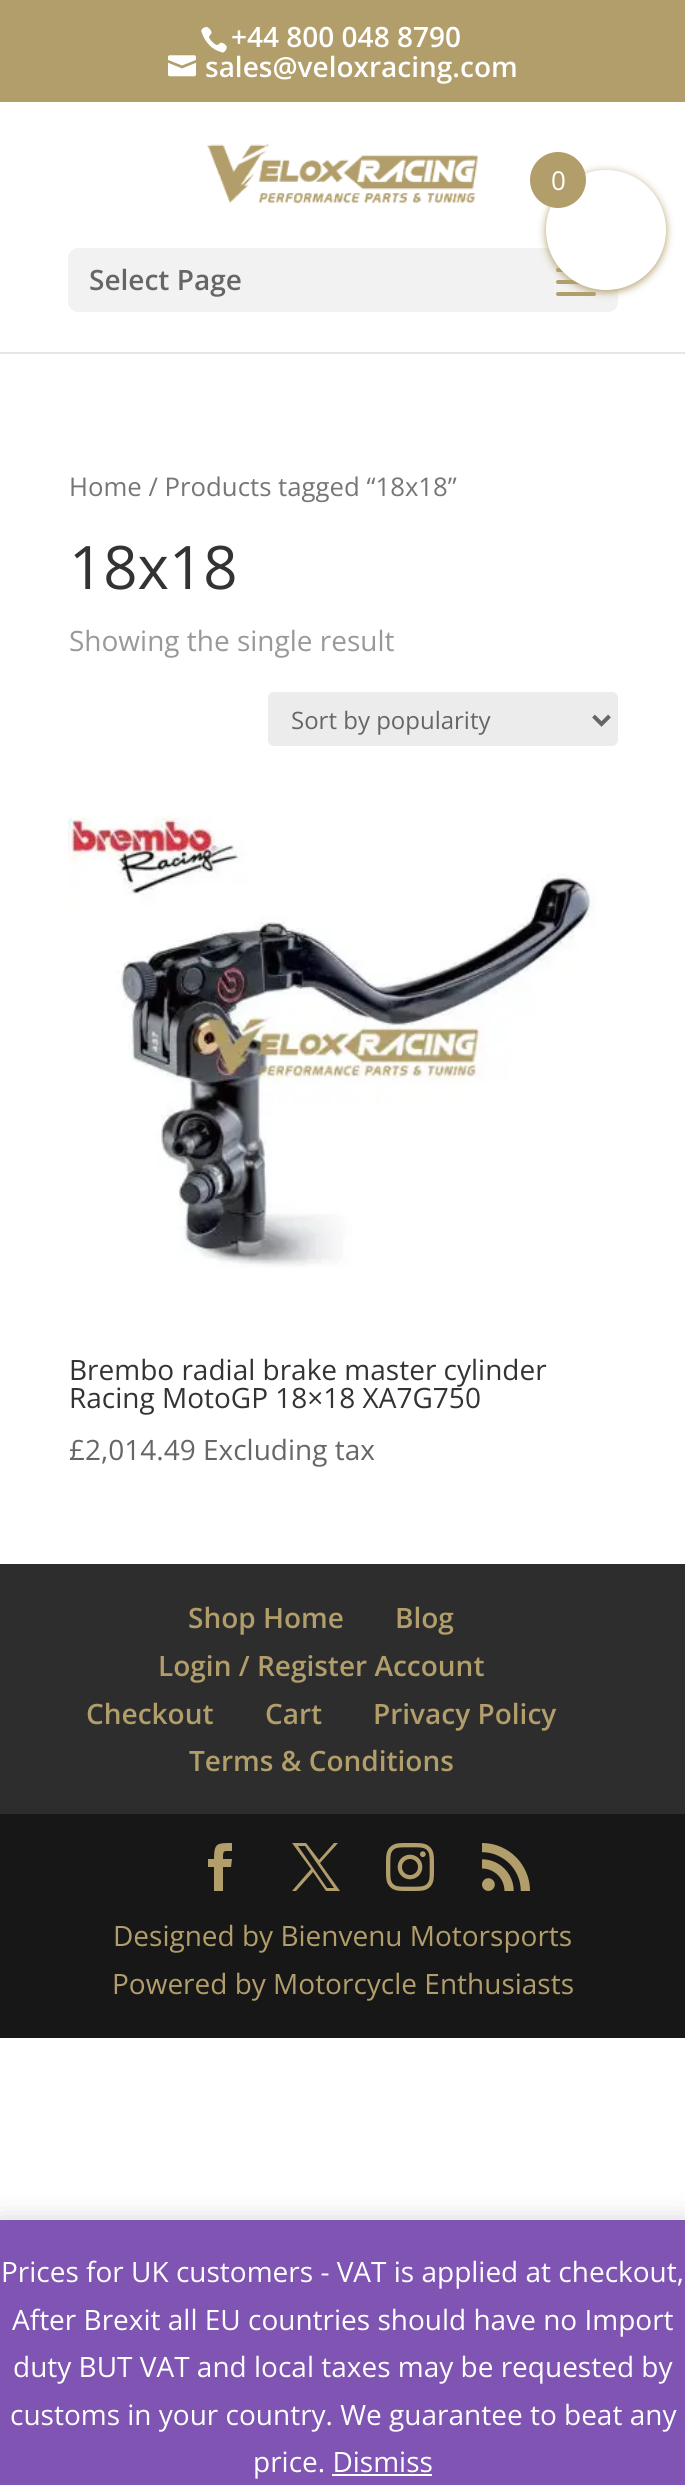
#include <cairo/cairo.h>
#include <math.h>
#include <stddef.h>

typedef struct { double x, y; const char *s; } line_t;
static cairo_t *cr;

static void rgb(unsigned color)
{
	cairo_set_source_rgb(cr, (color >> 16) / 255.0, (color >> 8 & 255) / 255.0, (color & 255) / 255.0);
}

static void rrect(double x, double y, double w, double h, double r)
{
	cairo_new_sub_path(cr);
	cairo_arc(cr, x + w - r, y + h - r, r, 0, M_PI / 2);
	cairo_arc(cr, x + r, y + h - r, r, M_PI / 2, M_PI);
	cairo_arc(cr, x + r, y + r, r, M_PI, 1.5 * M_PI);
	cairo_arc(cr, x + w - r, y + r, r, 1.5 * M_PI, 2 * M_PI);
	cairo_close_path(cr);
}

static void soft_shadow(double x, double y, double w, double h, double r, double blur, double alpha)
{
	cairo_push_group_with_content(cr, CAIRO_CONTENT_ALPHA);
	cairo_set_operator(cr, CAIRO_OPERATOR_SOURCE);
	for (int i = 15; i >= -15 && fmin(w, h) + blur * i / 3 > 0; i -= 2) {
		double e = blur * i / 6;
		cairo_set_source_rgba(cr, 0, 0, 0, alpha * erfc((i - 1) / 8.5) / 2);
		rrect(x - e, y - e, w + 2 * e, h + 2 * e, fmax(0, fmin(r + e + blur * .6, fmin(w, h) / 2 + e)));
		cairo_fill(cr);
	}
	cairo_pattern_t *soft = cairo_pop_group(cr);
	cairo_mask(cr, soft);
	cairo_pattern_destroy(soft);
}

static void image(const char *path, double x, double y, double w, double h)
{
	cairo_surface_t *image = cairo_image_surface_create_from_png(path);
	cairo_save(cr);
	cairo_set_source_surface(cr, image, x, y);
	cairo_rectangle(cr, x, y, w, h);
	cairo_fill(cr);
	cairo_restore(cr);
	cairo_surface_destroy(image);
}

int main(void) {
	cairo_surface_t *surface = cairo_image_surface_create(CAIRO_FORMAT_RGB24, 685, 2485);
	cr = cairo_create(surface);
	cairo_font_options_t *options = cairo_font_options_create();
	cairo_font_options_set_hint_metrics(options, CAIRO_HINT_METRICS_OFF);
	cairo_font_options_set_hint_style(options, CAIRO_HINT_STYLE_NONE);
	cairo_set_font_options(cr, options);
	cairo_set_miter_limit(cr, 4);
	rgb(0xffffff);
	cairo_paint(cr);
	rgb(0xb29e6b);
	cairo_rectangle(cr, 0, 0, 685, 102);
	cairo_fill(cr);
	image("img/1.png", 201, 26, 26, 27);
	image("img/2.png", 168, 55, 28, 22);
	rgb(0xe6e6e6);
	cairo_rectangle(cr, 0, 352, 685, 2);
	cairo_fill(cr);
	image("img/3.png", 207, 143, 271, 61);
	rgb(0xf2f2f2);
	rrect(68, 248, 550, 64, 10);
	cairo_fill(cr);
	image("img/4.png", 556, 268, 40, 28);
	rgb(0xececec);
	rrect(268, 692, 350, 54, 6);
	cairo_fill(cr);
	cairo_new_path(cr);
	cairo_move_to(cr, 593.5, 716);
	cairo_line_to(cr, 601.5, 724);
	cairo_line_to(cr, 609.5, 716);
	rgb(0x666666);
	cairo_set_line_width(cr, 4);
	cairo_stroke(cr);
	image("img/5.png", 68, 815, 528, 453);
	rgb(0x2d2d2d);
	cairo_rectangle(cr, 0, 1564, 685, 250);
	cairo_fill(cr);
	rgb(0x171717);
	cairo_rectangle(cr, 0, 1814, 685, 224);
	cairo_fill(cr);
	rgb(0xb29e6b);
	cairo_new_path(cr);
	cairo_move_to(cr, 214, 1891);
	cairo_line_to(cr, 223, 1891);
	cairo_line_to(cr, 223, 1867);
	cairo_line_to(cr, 231, 1867);
	cairo_line_to(cr, 232, 1859);
	cairo_line_to(cr, 223, 1859);
	cairo_curve_to(cr, 223, 1850, 223, 1851, 232, 1851);
	cairo_line_to(cr, 232, 1843);
	cairo_curve_to(cr, 217, 1843, 214, 1843, 214, 1859);
	cairo_line_to(cr, 208, 1859);
	cairo_line_to(cr, 208, 1867);
	cairo_line_to(cr, 214, 1867);
	cairo_close_path(cr);
	cairo_fill(cr);
	cairo_new_path(cr);
	cairo_move_to(cr, 292, 1843);
	cairo_line_to(cr, 311, 1869);
	cairo_line_to(cr, 292, 1891);
	cairo_line_to(cr, 296, 1891);
	cairo_line_to(cr, 313, 1872);
	cairo_line_to(cr, 326, 1891);
	cairo_line_to(cr, 340, 1891);
	cairo_line_to(cr, 320, 1863);
	cairo_line_to(cr, 338, 1843);
	cairo_line_to(cr, 334, 1843);
	cairo_line_to(cr, 319, 1860);
	cairo_line_to(cr, 306, 1843);
	cairo_close_path(cr);
	cairo_move_to(cr, 298, 1846);
	cairo_line_to(cr, 305, 1846);
	cairo_line_to(cr, 334, 1888);
	cairo_line_to(cr, 327, 1888);
	cairo_close_path(cr);
	cairo_fill(cr);
	image("img/6.png", 386, 1843, 48, 48);
	image("img/7.png", 482, 1843, 48, 48);
	rgb(0xb29e6b);
	soft_shadow(546, 172, 120, 120, 60, 4, 1);
	rgb(0xffffff);
	cairo_arc(cr, 606, 230, 60, 0, 2 * M_PI);
	cairo_fill(cr);
	rgb(0xb29e6b);
	cairo_arc(cr, 558, 180, 28, 0, 2 * M_PI);
	cairo_fill(cr);
	rgb(0x000000);
	soft_shadow(0, 2222, 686, 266, 0, 14, 0.2);
	rgb(0x7f54b3);
	cairo_rectangle(cr, 0, 2220, 685, 265);
	cairo_fill(cr);
	rgb(0xffffff);
	cairo_rectangle(cr, 332, 2474, 100, 2);
	cairo_fill(cr);
	cairo_select_font_face(cr, "Open Sans SemiBold", CAIRO_FONT_SLANT_NORMAL, CAIRO_FONT_WEIGHT_NORMAL);
	cairo_set_font_size(cr, 28);
	cairo_move_to(cr, 231, 47);
	cairo_show_text(cr, "+44 800 048 8790");
	cairo_move_to(cr, 205, 77);
	cairo_show_text(cr, "sales@veloxracing.com");
	rgb(0x666666);
	cairo_move_to(cr, 89, 290);
	cairo_show_text(cr, "Select Page");
	cairo_select_font_face(cr, "Open Sans", CAIRO_FONT_SLANT_NORMAL, CAIRO_FONT_WEIGHT_NORMAL);
	cairo_set_font_size(cr, 25.75);
	rgb(0x767676);
	cairo_move_to(cr, 69, 496);
	cairo_show_text(cr, "Home / Products tagged “18x18”");
	cairo_set_font_size(cr, 60);
	rgb(0x333333);
	cairo_move_to(cr, 69, 589);
	cairo_show_text(cr, "18x18");
	cairo_set_font_size(cr, 28);
	rgb(0x999999);
	cairo_move_to(cr, 69, 651);
	cairo_show_text(cr, "Showing the single result");
	cairo_set_font_size(cr, 24);
	rgb(0x666666);
	cairo_move_to(cr, 291, 729);
	cairo_show_text(cr, "Sort by popularity");
	cairo_set_font_size(cr, 28);
	rgb(0x333333);
	cairo_move_to(cr, 69, 1380);
	cairo_show_text(cr, "Brembo radial brake master cylinder");
	cairo_move_to(cr, 69, 1408);
	cairo_show_text(cr, "Racing MotoGP 18×18 XA7G750");
	rgb(0x666666);
	cairo_move_to(cr, 69, 1460);
	cairo_show_text(cr, "£2,014.49 Excluding tax");
	cairo_select_font_face(cr, "Open Sans SemiBold", CAIRO_FONT_SLANT_NORMAL, CAIRO_FONT_WEIGHT_NORMAL);
	rgb(0xb29e6b);
	{
		static const line_t items[] = {
			{188, 1628, "Shop Home"},
			{395, 1628, "Blog"},
			{158, 1676, "Login / Register Account"},
			{86, 1724, "Checkout"},
			{265, 1724, "Cart"},
			{373, 1724, "Privacy Policy"},
			{189, 1771, "Terms & Conditions"},
		};
		for (size_t i = 0; i < sizeof items / sizeof *items; i++) {
			cairo_move_to(cr, items[i].x, items[i].y);
			cairo_show_text(cr, items[i].s);
		}
	}
	cairo_select_font_face(cr, "Open Sans", CAIRO_FONT_SLANT_NORMAL, CAIRO_FONT_WEIGHT_NORMAL);
	cairo_move_to(cr, 113, 1946);
	cairo_show_text(cr, "Designed by Bienvenu Motorsports");
	cairo_move_to(cr, 112, 1994);
	cairo_show_text(cr, "Powered by Motorcycle Enthusiasts");
	cairo_set_font_size(cr, 26);
	rgb(0xffffff);
	cairo_move_to(cr, 551, 190);
	cairo_show_text(cr, "0");
	cairo_set_font_size(cr, 28);
	{
		static const line_t items[] = {
			{1, 2282, "Prices for UK customers - VAT is applied at checkout,"},
			{12, 2330, "After Brexit all EU countries should have no Import"},
			{13, 2377, "duty BUT VAT and local taxes may be requested by"},
			{10, 2425, "customs in your country. We guarantee to beat any"},
			{253, 2472, "price. Dismiss"},
		};
		for (size_t i = 0; i < sizeof items / sizeof *items; i++) {
			cairo_move_to(cr, items[i].x, items[i].y);
			cairo_show_text(cr, items[i].s);
		}
	}
	cairo_surface_write_to_png(surface, "page.png");
	cairo_font_options_destroy(options);
	cairo_destroy(cr);
	cairo_surface_destroy(surface);
	return 0;
}
